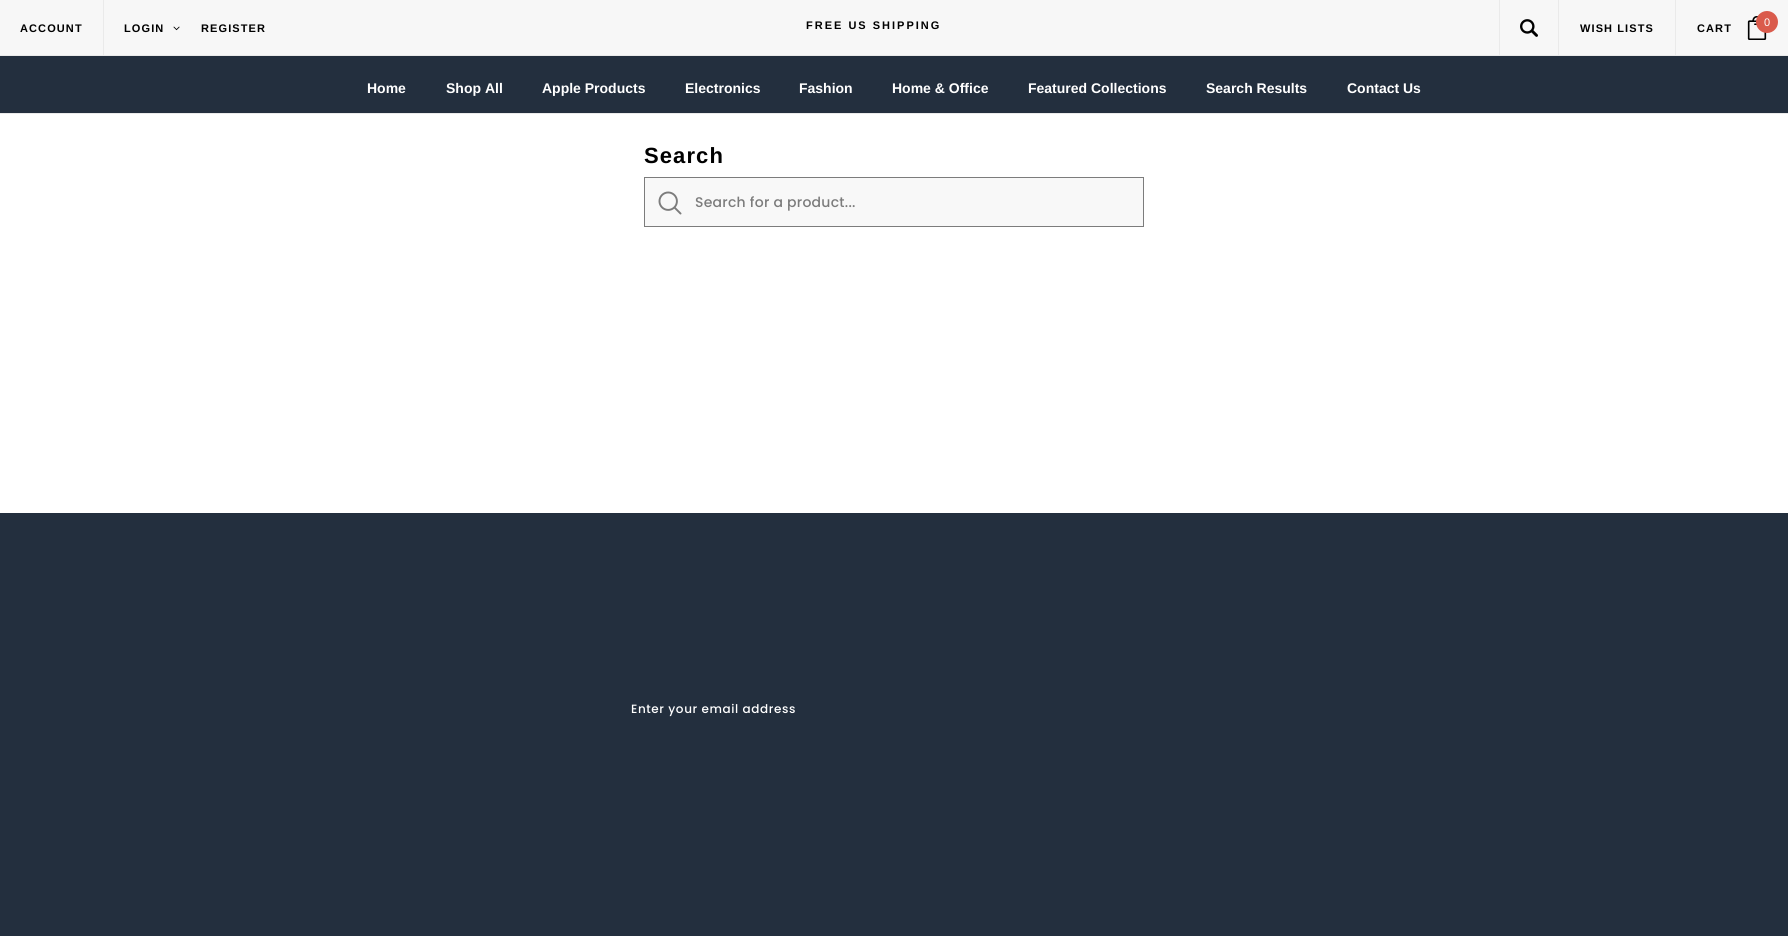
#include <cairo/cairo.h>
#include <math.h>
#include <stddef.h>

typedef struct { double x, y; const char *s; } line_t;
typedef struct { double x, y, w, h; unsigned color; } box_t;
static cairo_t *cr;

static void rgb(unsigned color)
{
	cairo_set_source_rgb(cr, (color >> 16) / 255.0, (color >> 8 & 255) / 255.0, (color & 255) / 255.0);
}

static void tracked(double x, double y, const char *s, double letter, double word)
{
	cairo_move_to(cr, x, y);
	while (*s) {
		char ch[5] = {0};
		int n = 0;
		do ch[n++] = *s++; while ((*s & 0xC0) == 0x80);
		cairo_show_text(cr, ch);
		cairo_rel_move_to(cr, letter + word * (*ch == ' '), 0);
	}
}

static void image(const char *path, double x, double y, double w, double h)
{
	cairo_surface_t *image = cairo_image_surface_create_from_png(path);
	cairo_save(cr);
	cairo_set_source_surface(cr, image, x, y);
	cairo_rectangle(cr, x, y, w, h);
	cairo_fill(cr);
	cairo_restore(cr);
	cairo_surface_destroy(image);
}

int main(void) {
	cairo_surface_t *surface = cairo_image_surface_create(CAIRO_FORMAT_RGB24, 1788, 936);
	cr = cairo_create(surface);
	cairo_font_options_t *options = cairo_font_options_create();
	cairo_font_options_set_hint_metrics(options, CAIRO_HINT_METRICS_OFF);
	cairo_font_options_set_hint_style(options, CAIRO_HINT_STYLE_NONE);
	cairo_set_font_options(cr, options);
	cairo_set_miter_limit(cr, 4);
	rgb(0xffffff);
	cairo_paint(cr);
	{
		static const box_t items[] = {
			{0, 0, 1788, 55, 0xf7f7f7},
			{0, 55, 1788, 1, 0xeaeaea},
			{103, 0, 1, 55, 0xeaeaea},
		};
		for (size_t i = 0; i < sizeof items / sizeof *items; i++) {
			rgb(items[i].color);
			cairo_rectangle(cr, items[i].x, items[i].y, items[i].w, items[i].h);
			cairo_fill(cr);
		}
	}
	image("img/1.png", 173, 26, 7, 5);
	cairo_rectangle(cr, 1499, 0, 1, 55);
	cairo_fill(cr);
	image("img/2.png", 1520, 19, 18, 18);
	cairo_rectangle(cr, 1558, 0, 1, 55);
	cairo_fill(cr);
	cairo_rectangle(cr, 1675, 0, 1, 55);
	cairo_fill(cr);
	image("img/3.png", 1747, 16, 20, 24);
	rgb(0xda5b4c);
	cairo_arc(cr, 1767, 22, 11, 0, 2 * M_PI);
	cairo_fill(cr);
	rgb(0x232f3e);
	cairo_rectangle(cr, 0, 56, 1788, 57);
	cairo_fill(cr);
	rgb(0xeaeaea);
	cairo_rectangle(cr, 0, 113, 1788, 1);
	cairo_fill(cr);
	rgb(0xf8f8f8);
	cairo_rectangle(cr, 644.5, 177.5, 499, 49);
	cairo_fill_preserve(cr);
	rgb(0x7c7c7c);
	cairo_set_line_width(cr, 1);
	cairo_stroke(cr);
	image("img/4.png", 658, 191, 24, 24);
	rgb(0x232f3e);
	cairo_rectangle(cr, 0, 513, 1788, 423);
	cairo_fill(cr);
	cairo_select_font_face(cr, "Liberation Sans", CAIRO_FONT_SLANT_NORMAL, CAIRO_FONT_WEIGHT_BOLD);
	cairo_set_font_size(cr, 11);
	rgb(0x000000);
	{
		static const line_t items[] = {
			{20, 32, "ACCOUNT"},
			{124, 32, "LOGIN"},
			{201, 32, "REGISTER"},
		};
		for (size_t i = 0; i < sizeof items / sizeof *items; i++) {
			tracked(items[i].x, items[i].y, items[i].s, 1.1, 0);
		}
	}
	tracked(806, 29, "FREE US SHIPPING", 2, 0);
	tracked(1580, 32, "WISH LISTS", 1.1, 0);
	cairo_select_font_face(cr, "Liberation Sans", CAIRO_FONT_SLANT_NORMAL, CAIRO_FONT_WEIGHT_NORMAL);
	rgb(0xffffff);
	tracked(1764, 26, "0", 1.1, 0);
	cairo_select_font_face(cr, "Liberation Sans", CAIRO_FONT_SLANT_NORMAL, CAIRO_FONT_WEIGHT_BOLD);
	rgb(0x000000);
	tracked(1697, 32, "CART", 1.1, 0);
	cairo_set_font_size(cr, 14);
	rgb(0xffffff);
	{
		static const line_t items[] = {
			{367, 93, "Home"},
			{446, 93, "Shop All"},
			{542, 93, "Apple Products"},
			{685, 93, "Electronics"},
			{799, 93, "Fashion"},
			{892, 93, "Home & Office"},
			{1028, 93, "Featured Collections"},
			{1206, 93, "Search Results"},
			{1347, 93, "Contact Us"},
		};
		for (size_t i = 0; i < sizeof items / sizeof *items; i++) {
			cairo_move_to(cr, items[i].x, items[i].y);
			cairo_show_text(cr, items[i].s);
		}
	}
	cairo_set_font_size(cr, 22);
	rgb(0x000000);
	tracked(644, 163, "Search", 1.1, 0);
	cairo_select_font_face(cr, "Poppins Medium", CAIRO_FONT_SLANT_NORMAL, CAIRO_FONT_WEIGHT_NORMAL);
	cairo_set_font_size(cr, 14);
	rgb(0x7c7c7c);
	tracked(695, 207, "Search for a product...", 0.25, 0);
	cairo_set_font_size(cr, 12);
	rgb(0xffffff);
	tracked(631, 713, "Enter your email address", 0.6, 0);
	cairo_surface_write_to_png(surface, "page.png");
	cairo_font_options_destroy(options);
	cairo_destroy(cr);
	cairo_surface_destroy(surface);
	return 0;
}
